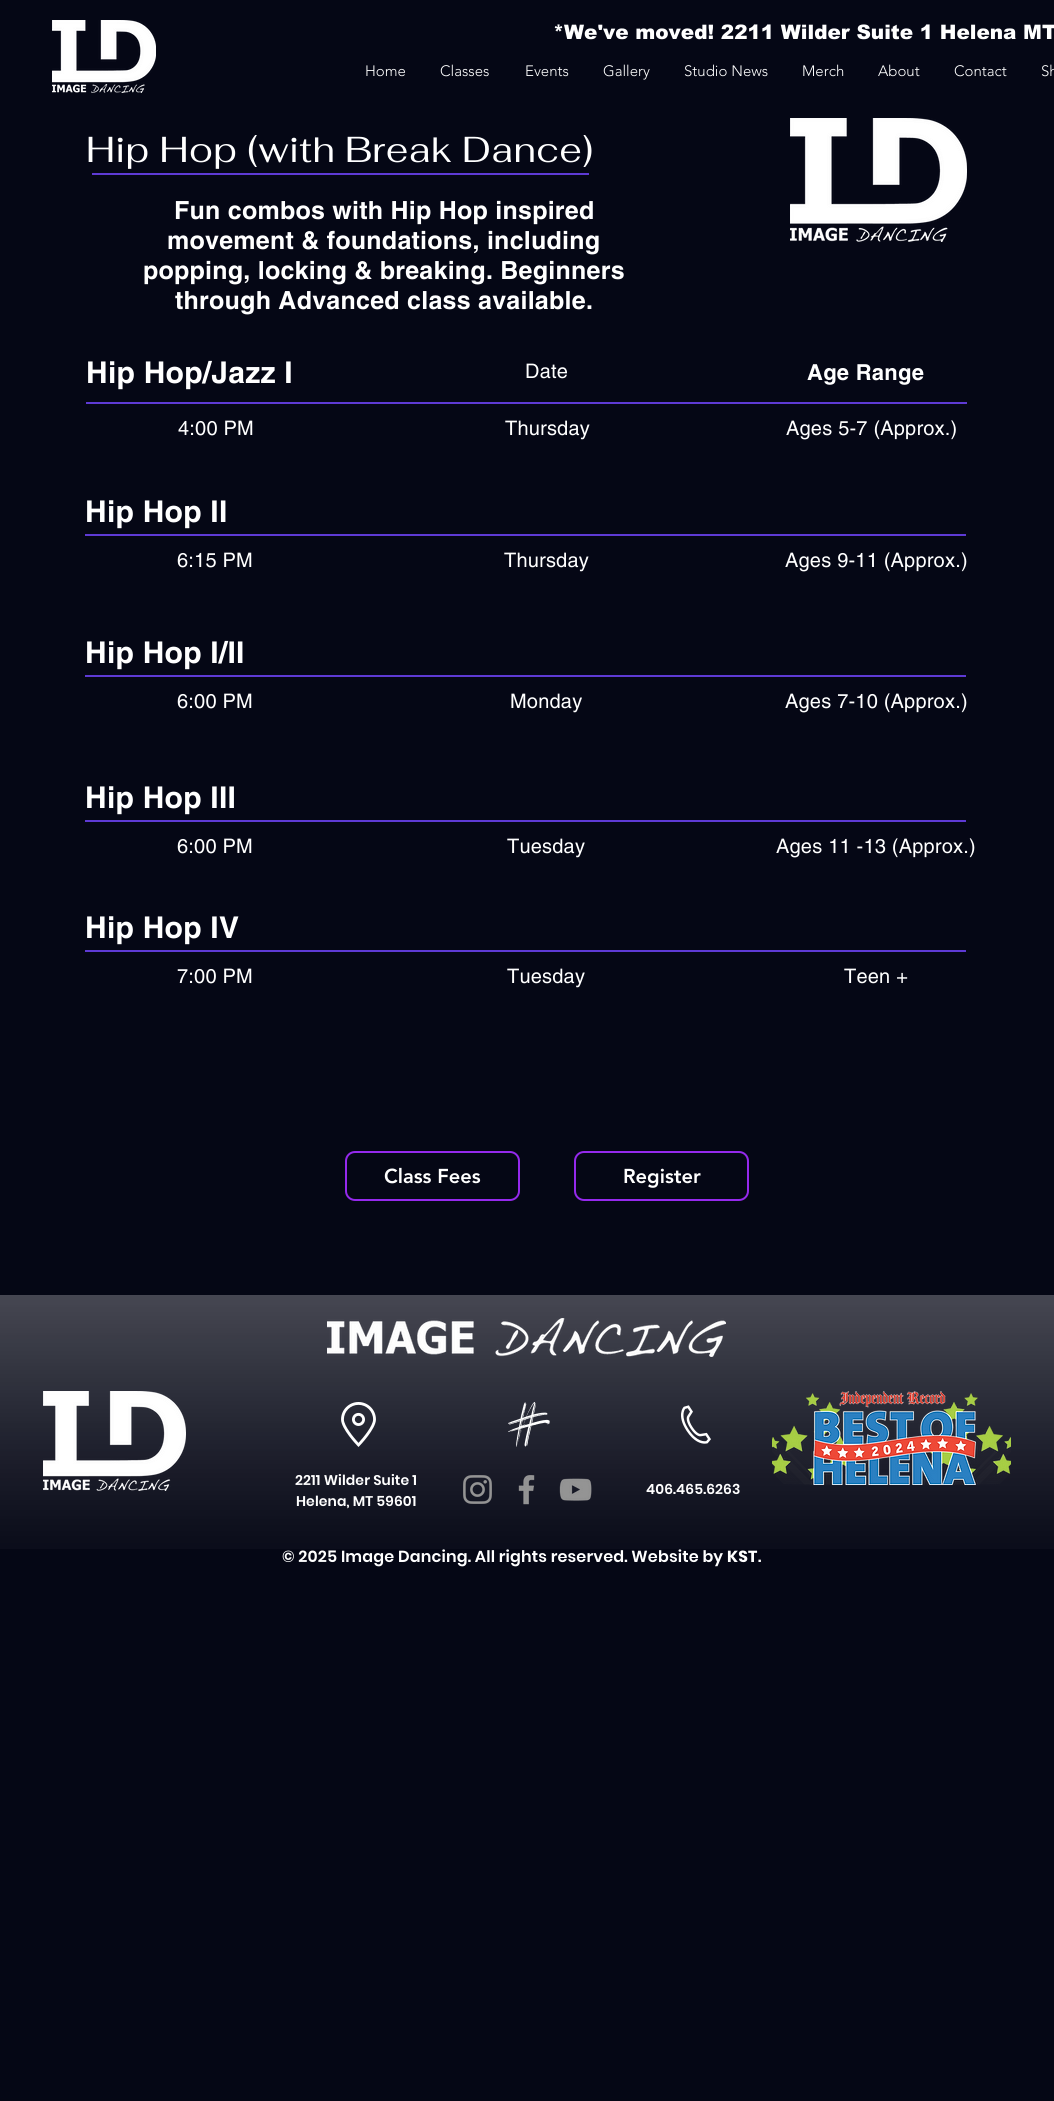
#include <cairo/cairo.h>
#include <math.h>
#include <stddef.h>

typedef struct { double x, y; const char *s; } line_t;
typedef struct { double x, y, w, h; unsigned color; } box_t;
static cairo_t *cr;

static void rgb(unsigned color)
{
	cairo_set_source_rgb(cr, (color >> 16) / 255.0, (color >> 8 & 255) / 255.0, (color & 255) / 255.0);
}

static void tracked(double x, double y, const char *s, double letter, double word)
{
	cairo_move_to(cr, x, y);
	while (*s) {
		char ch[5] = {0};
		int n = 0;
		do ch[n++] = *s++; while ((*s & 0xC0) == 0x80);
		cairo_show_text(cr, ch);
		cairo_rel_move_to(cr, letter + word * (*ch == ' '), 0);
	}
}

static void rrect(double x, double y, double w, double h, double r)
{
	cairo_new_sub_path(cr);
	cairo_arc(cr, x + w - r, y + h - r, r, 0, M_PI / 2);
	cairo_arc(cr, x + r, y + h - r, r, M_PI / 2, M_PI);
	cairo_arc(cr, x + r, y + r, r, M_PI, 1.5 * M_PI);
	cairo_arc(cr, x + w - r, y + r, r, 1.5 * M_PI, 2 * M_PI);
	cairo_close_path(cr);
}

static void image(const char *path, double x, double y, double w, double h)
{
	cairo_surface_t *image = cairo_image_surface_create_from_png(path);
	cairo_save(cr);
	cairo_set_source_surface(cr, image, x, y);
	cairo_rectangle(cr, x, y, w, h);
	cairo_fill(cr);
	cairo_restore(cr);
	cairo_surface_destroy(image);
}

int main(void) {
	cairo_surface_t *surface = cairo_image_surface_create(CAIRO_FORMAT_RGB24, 1054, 2101);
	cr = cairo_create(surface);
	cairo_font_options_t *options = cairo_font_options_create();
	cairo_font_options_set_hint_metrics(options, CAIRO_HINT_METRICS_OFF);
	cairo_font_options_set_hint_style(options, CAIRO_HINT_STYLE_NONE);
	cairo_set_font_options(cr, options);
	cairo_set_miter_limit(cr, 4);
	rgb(0x050715);
	cairo_paint(cr);
	image("img/1.png", 52, 20, 104, 73);
	image("img/2.png", 790, 118, 177, 124);
	{
		static const box_t items[] = {
			{92, 173, 497, 2, 0x5e3ad4},
			{86, 402, 881, 2, 0x5e3ad4},
			{85, 534, 881, 2, 0x5e3ad4},
			{85, 675, 881, 2, 0x5e3ad4},
			{85, 820, 881, 2, 0x5e3ad4},
			{85, 950, 881, 2, 0x5e3ad4},
		};
		for (size_t i = 0; i < sizeof items / sizeof *items; i++) {
			rgb(items[i].color);
			cairo_rectangle(cr, items[i].x, items[i].y, items[i].w, items[i].h);
			cairo_fill(cr);
		}
	}
	rrect(346, 1152, 173, 48, 9);
	rgb(0x9529ed);
	cairo_stroke(cr);
	rrect(575, 1152, 173, 48, 9);
	cairo_stroke(cr);
	image("img/3.png", 0, 1295, 1054, 254);
	image("img/4.png", 327, 1318, 399, 39);
	image("img/5.png", 43, 1391, 143, 100);
	image("img/6.png", 341, 1402, 35, 45);
	image("img/7.png", 508, 1402, 42, 45);
	image("img/8.png", 681, 1405, 30, 39);
	image("img/9.png", 772, 1391, 239, 94);
	image("img/10.png", 463, 1475, 29, 29);
	image("img/11.png", 518, 1475, 17, 30);
	image("img/12.png", 559, 1478, 33, 23);
	cairo_select_font_face(cr, "arial Black", CAIRO_FONT_SLANT_NORMAL, CAIRO_FONT_WEIGHT_NORMAL);
	cairo_set_font_size(cr, 20);
	rgb(0xffffff);
	cairo_move_to(cr, 553, 39);
	cairo_show_text(cr, "*We've moved! 2211 Wilder Suite 1 Helena MT");
	cairo_select_font_face(cr, "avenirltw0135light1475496 Light", CAIRO_FONT_SLANT_NORMAL, CAIRO_FONT_WEIGHT_NORMAL);
	cairo_set_font_size(cr, 15);
	{
		static const line_t items[] = {
			{365, 76, "Home"},
			{440, 76, "Classes"},
			{525, 76, "Events"},
			{603, 76, "Gallery"},
			{684, 76, "Studio News"},
			{802, 76, "Merch"},
			{878, 76, "About"},
			{954, 76, "Contact"},
			{1041, 76, "Sh"},
		};
		for (size_t i = 0; i < sizeof items / sizeof *items; i++) {
			cairo_move_to(cr, items[i].x, items[i].y);
			cairo_show_text(cr, items[i].s);
		}
	}
	cairo_select_font_face(cr, "Fahkwang", CAIRO_FONT_SLANT_NORMAL, CAIRO_FONT_WEIGHT_NORMAL);
	cairo_set_font_size(cr, 36);
	tracked(86, 162, "Hip Hop (with Break Dance)", 0.35, 0);
	cairo_select_font_face(cr, "helvetica", CAIRO_FONT_SLANT_NORMAL, CAIRO_FONT_WEIGHT_BOLD);
	cairo_set_font_size(cr, 25);
	{
		static const line_t items[] = {
			{174, 219, "Fun combos with Hip Hop inspired"},
			{167, 249, "movement & foundations, including"},
			{143, 279, "popping, locking & breaking. Beginners"},
			{175, 309, "through Advanced class available."},
		};
		for (size_t i = 0; i < sizeof items / sizeof *items; i++) {
			tracked(items[i].x, items[i].y, items[i].s, 0.25, 0);
		}
	}
	cairo_set_font_size(cr, 30);
	tracked(86, 383, "Hip Hop/Jazz I", 0.25, 0);
	cairo_select_font_face(cr, "helvetica", CAIRO_FONT_SLANT_NORMAL, CAIRO_FONT_WEIGHT_NORMAL);
	cairo_set_font_size(cr, 20);
	tracked(525, 378, "Date", 0.2, 0);
	cairo_select_font_face(cr, "helvetica", CAIRO_FONT_SLANT_NORMAL, CAIRO_FONT_WEIGHT_BOLD);
	cairo_set_font_size(cr, 22);
	tracked(807, 380, "Age Range", 0.25, 0);
	cairo_select_font_face(cr, "helvetica", CAIRO_FONT_SLANT_NORMAL, CAIRO_FONT_WEIGHT_NORMAL);
	cairo_set_font_size(cr, 20);
	{
		static const line_t items[] = {
			{178, 435, "4:00 PM"},
			{505, 435, "Thursday"},
			{786, 435, "Ages 5-7 (Approx.)"},
		};
		for (size_t i = 0; i < sizeof items / sizeof *items; i++) {
			tracked(items[i].x, items[i].y, items[i].s, 0.2, 0);
		}
	}
	cairo_select_font_face(cr, "helvetica", CAIRO_FONT_SLANT_NORMAL, CAIRO_FONT_WEIGHT_BOLD);
	cairo_set_font_size(cr, 30);
	tracked(85, 522, "Hip Hop II", 0.25, 0);
	cairo_select_font_face(cr, "helvetica", CAIRO_FONT_SLANT_NORMAL, CAIRO_FONT_WEIGHT_NORMAL);
	cairo_set_font_size(cr, 20);
	{
		static const line_t items[] = {
			{177, 567, "6:15 PM"},
			{504, 567, "Thursday"},
			{785, 567, "Ages 9-11 (Approx.)"},
		};
		for (size_t i = 0; i < sizeof items / sizeof *items; i++) {
			tracked(items[i].x, items[i].y, items[i].s, 0.2, 0);
		}
	}
	cairo_select_font_face(cr, "helvetica", CAIRO_FONT_SLANT_NORMAL, CAIRO_FONT_WEIGHT_BOLD);
	cairo_set_font_size(cr, 30);
	tracked(85, 663, "Hip Hop I/II", 0.25, 0);
	cairo_select_font_face(cr, "helvetica", CAIRO_FONT_SLANT_NORMAL, CAIRO_FONT_WEIGHT_NORMAL);
	cairo_set_font_size(cr, 20);
	{
		static const line_t items[] = {
			{177, 708, "6:00 PM"},
			{510, 708, "Monday"},
			{785, 708, "Ages 7-10 (Approx.)"},
		};
		for (size_t i = 0; i < sizeof items / sizeof *items; i++) {
			tracked(items[i].x, items[i].y, items[i].s, 0.2, 0);
		}
	}
	cairo_select_font_face(cr, "helvetica", CAIRO_FONT_SLANT_NORMAL, CAIRO_FONT_WEIGHT_BOLD);
	cairo_set_font_size(cr, 30);
	tracked(85, 808, "Hip Hop III", 0.25, 0);
	cairo_select_font_face(cr, "helvetica", CAIRO_FONT_SLANT_NORMAL, CAIRO_FONT_WEIGHT_NORMAL);
	cairo_set_font_size(cr, 20);
	{
		static const line_t items[] = {
			{177, 853, "6:00 PM"},
			{507, 853, "Tuesday"},
			{776, 853, "Ages 11 -13 (Approx.)"},
		};
		for (size_t i = 0; i < sizeof items / sizeof *items; i++) {
			tracked(items[i].x, items[i].y, items[i].s, 0.2, 0);
		}
	}
	cairo_select_font_face(cr, "helvetica", CAIRO_FONT_SLANT_NORMAL, CAIRO_FONT_WEIGHT_BOLD);
	cairo_set_font_size(cr, 30);
	tracked(85, 938, "Hip Hop IV", 0.25, 0);
	cairo_select_font_face(cr, "helvetica", CAIRO_FONT_SLANT_NORMAL, CAIRO_FONT_WEIGHT_NORMAL);
	cairo_set_font_size(cr, 20);
	{
		static const line_t items[] = {
			{177, 983, "7:00 PM"},
			{507, 983, "Tuesday"},
			{844, 983, "Teen +"},
		};
		for (size_t i = 0; i < sizeof items / sizeof *items; i++) {
			tracked(items[i].x, items[i].y, items[i].s, 0.2, 0);
		}
	}
	cairo_select_font_face(cr, "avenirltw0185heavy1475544 Black", CAIRO_FONT_SLANT_NORMAL, CAIRO_FONT_WEIGHT_NORMAL);
	cairo_move_to(cr, 384, 1183);
	cairo_show_text(cr, "Class Fees");
	cairo_move_to(cr, 623, 1183);
	cairo_show_text(cr, "Register");
	cairo_select_font_face(cr, "Poppins SemiBold", CAIRO_FONT_SLANT_NORMAL, CAIRO_FONT_WEIGHT_NORMAL);
	cairo_set_font_size(cr, 14);
	{
		static const line_t items[] = {
			{295, 1485, "2211 Wilder Suite 1"},
			{296, 1506, "Helena, MT 59601"},
			{646, 1494, "406.465.6263"},
		};
		for (size_t i = 0; i < sizeof items / sizeof *items; i++) {
			tracked(items[i].x, items[i].y, items[i].s, 0.1, 0);
		}
	}
	cairo_set_font_size(cr, 16);
	tracked(282, 1562, "© 2025 Image Dancing. All rights reserved. Website by", 0.15, 0);
	cairo_select_font_face(cr, "Poppins", CAIRO_FONT_SLANT_NORMAL, CAIRO_FONT_WEIGHT_BOLD);
	tracked(727, 1562, "KST", 0.15, 0);
	cairo_select_font_face(cr, "Poppins SemiBold", CAIRO_FONT_SLANT_NORMAL, CAIRO_FONT_WEIGHT_NORMAL);
	tracked(758, 1562, ".", 0.15, 0);
	cairo_surface_write_to_png(surface, "page.png");
	cairo_font_options_destroy(options);
	cairo_destroy(cr);
	cairo_surface_destroy(surface);
	return 0;
}
